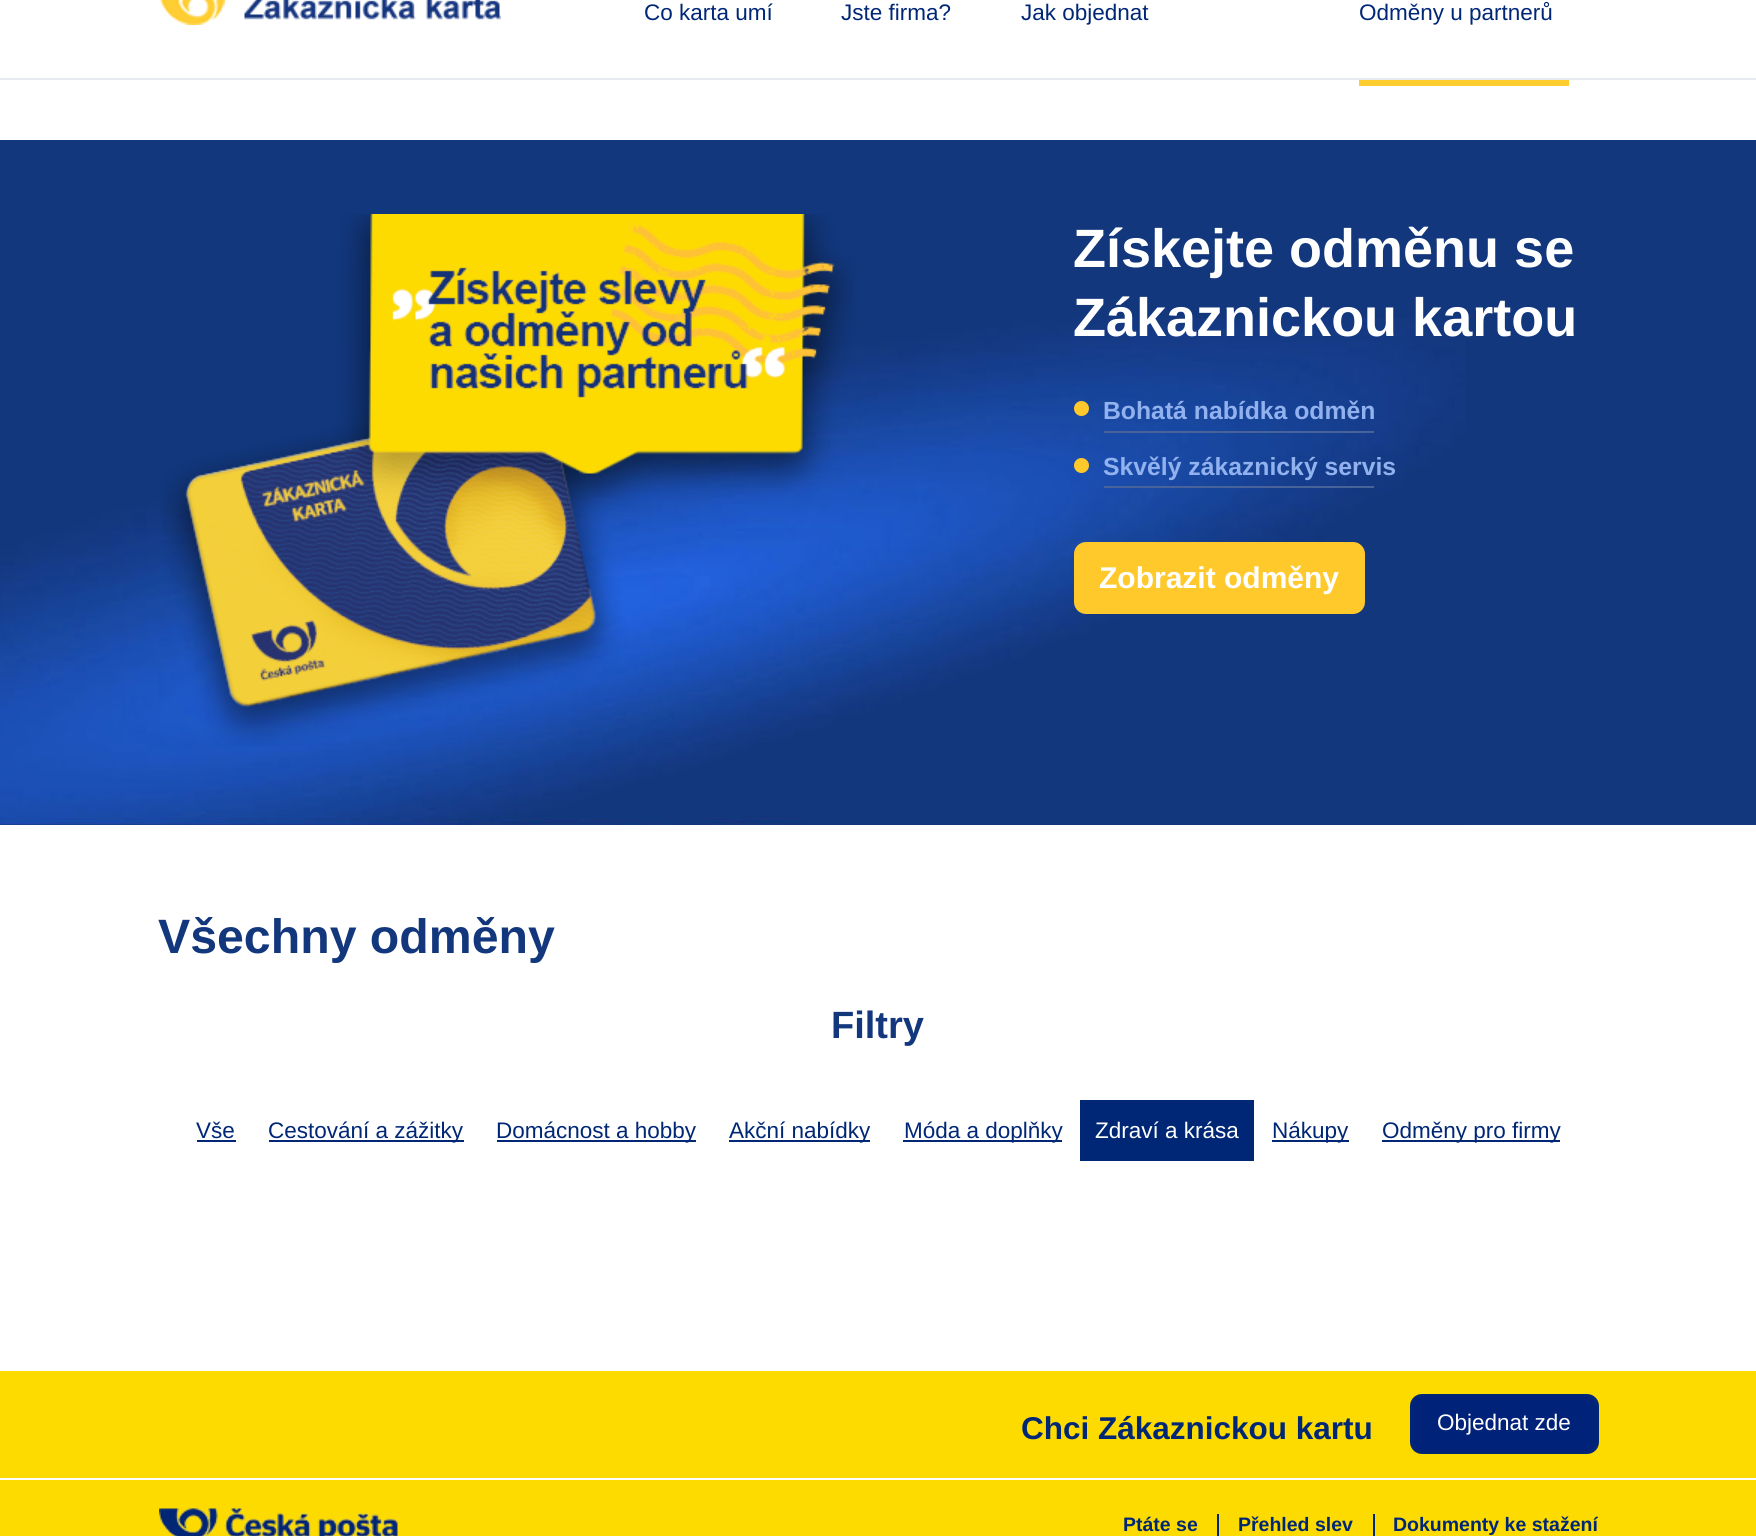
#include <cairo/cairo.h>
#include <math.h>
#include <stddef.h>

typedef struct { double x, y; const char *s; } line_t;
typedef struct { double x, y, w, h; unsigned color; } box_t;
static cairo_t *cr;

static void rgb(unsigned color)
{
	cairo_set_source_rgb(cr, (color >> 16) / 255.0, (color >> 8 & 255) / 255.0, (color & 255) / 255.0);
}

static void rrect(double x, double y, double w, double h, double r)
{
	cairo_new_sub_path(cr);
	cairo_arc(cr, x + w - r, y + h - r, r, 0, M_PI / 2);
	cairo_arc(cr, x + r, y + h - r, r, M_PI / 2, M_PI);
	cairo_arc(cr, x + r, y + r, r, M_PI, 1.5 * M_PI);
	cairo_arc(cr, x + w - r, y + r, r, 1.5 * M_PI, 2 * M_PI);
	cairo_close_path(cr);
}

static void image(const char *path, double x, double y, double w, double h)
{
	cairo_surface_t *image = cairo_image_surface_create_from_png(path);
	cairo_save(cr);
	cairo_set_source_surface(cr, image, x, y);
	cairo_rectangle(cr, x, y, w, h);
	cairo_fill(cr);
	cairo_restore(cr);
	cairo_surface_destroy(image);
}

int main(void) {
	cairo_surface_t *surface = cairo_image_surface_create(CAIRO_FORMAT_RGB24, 1756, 1536);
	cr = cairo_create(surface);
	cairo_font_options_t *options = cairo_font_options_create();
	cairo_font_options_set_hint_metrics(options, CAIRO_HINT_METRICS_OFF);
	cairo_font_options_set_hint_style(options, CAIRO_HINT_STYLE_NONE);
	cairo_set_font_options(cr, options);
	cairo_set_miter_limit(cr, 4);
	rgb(0xffffff);
	cairo_paint(cr);
	rgb(0xe7eaf0);
	cairo_rectangle(cr, 0, 78, 1756, 2);
	cairo_fill(cr);
	image("img/1.png", 159, 0, 342, 25);
	rgb(0xfece30);
	cairo_rectangle(cr, 1359, 80, 210, 6);
	cairo_fill(cr);
	rgb(0x12377d);
	cairo_rectangle(cr, 0, 140, 1756, 685);
	cairo_fill(cr);
	image("img/2.png", 0, 318, 1466, 507);
	image("img/3.png", 161, 214, 694, 533);
	rgb(0xffc92b);
	cairo_arc(cr, 1081.5, 408.5, 7.5, 0, 2 * M_PI);
	cairo_fill(cr);
	rgb(0x47639a);
	cairo_rectangle(cr, 1104, 431, 270, 2);
	cairo_fill(cr);
	rgb(0xffc92b);
	cairo_arc(cr, 1081.5, 465.5, 7.5, 0, 2 * M_PI);
	cairo_fill(cr);
	rgb(0x47639a);
	cairo_rectangle(cr, 1104, 486, 270, 2);
	cairo_fill(cr);
	rgb(0xffc92b);
	rrect(1074, 542, 291, 72, 12);
	cairo_fill(cr);
	{
		static const box_t items[] = {
			{197, 1140, 39, 2, 0x002776},
			{269, 1140, 195, 2, 0x002776},
			{497, 1140, 199, 2, 0x002776},
			{729, 1140, 141, 2, 0x002776},
			{903, 1140, 159, 2, 0x002776},
			{1080, 1100, 174, 61, 0x002776},
			{1272, 1140, 77, 2, 0x002776},
			{1382, 1140, 178, 2, 0x002776},
			{0, 1371, 1756, 165, 0xfddb00},
		};
		for (size_t i = 0; i < sizeof items / sizeof *items; i++) {
			rgb(items[i].color);
			cairo_rectangle(cr, items[i].x, items[i].y, items[i].w, items[i].h);
			cairo_fill(cr);
		}
	}
	rgb(0x002279);
	rrect(1411, 1395, 187, 58, 11);
	cairo_fill_preserve(cr);
	rgb(0x002776);
	cairo_stroke(cr);
	rgb(0xffffff);
	cairo_rectangle(cr, 0, 1478, 1756, 2);
	cairo_fill(cr);
	image("img/4.png", 159, 1508, 239, 28);
	rgb(0x002776);
	cairo_rectangle(cr, 1217, 1514, 2, 22);
	cairo_fill(cr);
	cairo_rectangle(cr, 1373, 1514, 2, 22);
	cairo_fill(cr);
	cairo_select_font_face(cr, "Liberation Sans", CAIRO_FONT_SLANT_NORMAL, CAIRO_FONT_WEIGHT_NORMAL);
	cairo_set_font_size(cr, 22.5);
	{
		static const line_t items[] = {
			{644, 20, "Co karta umí"},
			{841, 20, "Jste firma?"},
			{1021, 20, "Jak objednat"},
			{1359, 20, "Odměny u partnerů"},
		};
		for (size_t i = 0; i < sizeof items / sizeof *items; i++) {
			cairo_move_to(cr, items[i].x, items[i].y);
			cairo_show_text(cr, items[i].s);
		}
	}
	cairo_select_font_face(cr, "Liberation Sans", CAIRO_FONT_SLANT_NORMAL, CAIRO_FONT_WEIGHT_BOLD);
	cairo_set_font_size(cr, 54);
	rgb(0xffffff);
	cairo_move_to(cr, 1073, 267);
	cairo_show_text(cr, "Získejte odměnu se");
	cairo_move_to(cr, 1073, 336);
	cairo_show_text(cr, "Zákaznickou kartou");
	cairo_set_font_size(cr, 24.75);
	rgb(0x92b2ef);
	cairo_move_to(cr, 1103, 419);
	cairo_show_text(cr, "Bohatá nabídka odměn");
	cairo_move_to(cr, 1103, 475);
	cairo_show_text(cr, "Skvělý zákaznický servis");
	cairo_set_font_size(cr, 30);
	rgb(0xffffff);
	cairo_move_to(cr, 1099, 588);
	cairo_show_text(cr, "Zobrazit odměny");
	cairo_set_font_size(cr, 48.25);
	rgb(0x12377d);
	cairo_move_to(cr, 158, 953);
	cairo_show_text(cr, "Všechny odměny");
	cairo_set_font_size(cr, 38);
	cairo_move_to(cr, 831, 1038);
	cairo_show_text(cr, "Filtry");
	cairo_select_font_face(cr, "Liberation Sans", CAIRO_FONT_SLANT_NORMAL, CAIRO_FONT_WEIGHT_NORMAL);
	cairo_set_font_size(cr, 22.5);
	rgb(0x002776);
	{
		static const line_t items[] = {
			{196, 1138, "Vše"},
			{268, 1138, "Cestování a zážitky"},
			{496, 1138, "Domácnost a hobby"},
			{729, 1138, "Akční nabídky"},
			{904, 1138, "Móda a doplňky"},
		};
		for (size_t i = 0; i < sizeof items / sizeof *items; i++) {
			cairo_move_to(cr, items[i].x, items[i].y);
			cairo_show_text(cr, items[i].s);
		}
	}
	rgb(0xffffff);
	cairo_move_to(cr, 1095, 1138);
	cairo_show_text(cr, "Zdraví a krása");
	rgb(0x002776);
	cairo_move_to(cr, 1272, 1138);
	cairo_show_text(cr, "Nákupy");
	cairo_move_to(cr, 1382, 1138);
	cairo_show_text(cr, "Odměny pro firmy");
	cairo_select_font_face(cr, "Liberation Sans", CAIRO_FONT_SLANT_NORMAL, CAIRO_FONT_WEIGHT_BOLD);
	cairo_set_font_size(cr, 31.5);
	cairo_move_to(cr, 1021, 1439);
	cairo_show_text(cr, "Chci Zákaznickou kartu");
	cairo_select_font_face(cr, "Liberation Sans", CAIRO_FONT_SLANT_NORMAL, CAIRO_FONT_WEIGHT_NORMAL);
	cairo_set_font_size(cr, 22.5);
	rgb(0xffffff);
	cairo_move_to(cr, 1437, 1430);
	cairo_show_text(cr, "Objednat zde");
	cairo_select_font_face(cr, "Liberation Sans", CAIRO_FONT_SLANT_NORMAL, CAIRO_FONT_WEIGHT_BOLD);
	cairo_set_font_size(cr, 19.5);
	rgb(0x002776);
	{
		static const line_t items[] = {
			{1123, 1531, "Ptáte se"},
			{1238, 1531, "Přehled slev"},
			{1393, 1531, "Dokumenty ke stažení"},
		};
		for (size_t i = 0; i < sizeof items / sizeof *items; i++) {
			cairo_move_to(cr, items[i].x, items[i].y);
			cairo_show_text(cr, items[i].s);
		}
	}
	cairo_surface_write_to_png(surface, "page.png");
	cairo_font_options_destroy(options);
	cairo_destroy(cr);
	cairo_surface_destroy(surface);
	return 0;
}
